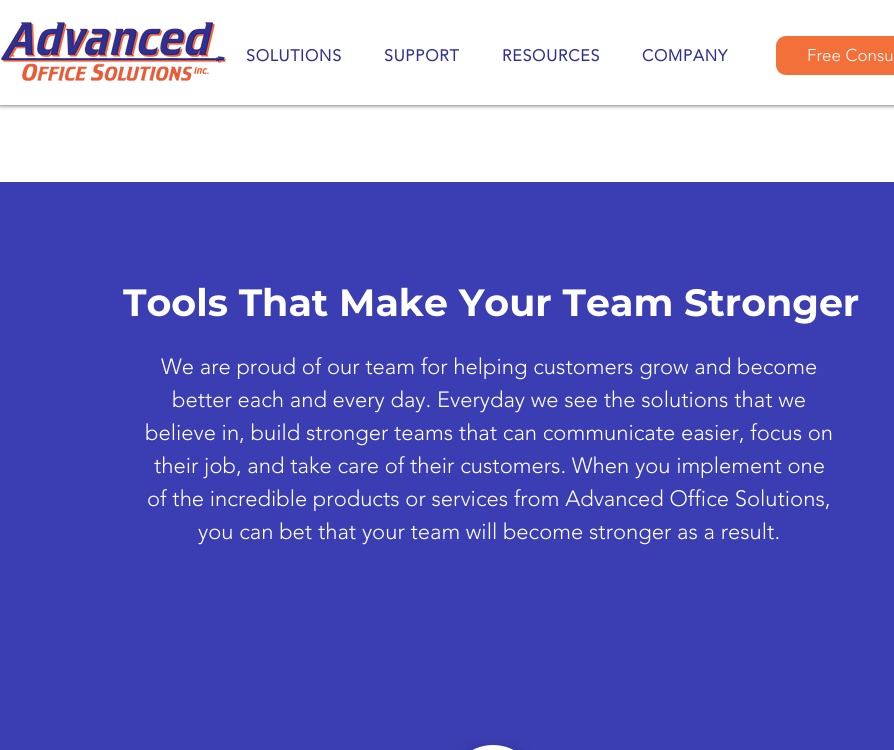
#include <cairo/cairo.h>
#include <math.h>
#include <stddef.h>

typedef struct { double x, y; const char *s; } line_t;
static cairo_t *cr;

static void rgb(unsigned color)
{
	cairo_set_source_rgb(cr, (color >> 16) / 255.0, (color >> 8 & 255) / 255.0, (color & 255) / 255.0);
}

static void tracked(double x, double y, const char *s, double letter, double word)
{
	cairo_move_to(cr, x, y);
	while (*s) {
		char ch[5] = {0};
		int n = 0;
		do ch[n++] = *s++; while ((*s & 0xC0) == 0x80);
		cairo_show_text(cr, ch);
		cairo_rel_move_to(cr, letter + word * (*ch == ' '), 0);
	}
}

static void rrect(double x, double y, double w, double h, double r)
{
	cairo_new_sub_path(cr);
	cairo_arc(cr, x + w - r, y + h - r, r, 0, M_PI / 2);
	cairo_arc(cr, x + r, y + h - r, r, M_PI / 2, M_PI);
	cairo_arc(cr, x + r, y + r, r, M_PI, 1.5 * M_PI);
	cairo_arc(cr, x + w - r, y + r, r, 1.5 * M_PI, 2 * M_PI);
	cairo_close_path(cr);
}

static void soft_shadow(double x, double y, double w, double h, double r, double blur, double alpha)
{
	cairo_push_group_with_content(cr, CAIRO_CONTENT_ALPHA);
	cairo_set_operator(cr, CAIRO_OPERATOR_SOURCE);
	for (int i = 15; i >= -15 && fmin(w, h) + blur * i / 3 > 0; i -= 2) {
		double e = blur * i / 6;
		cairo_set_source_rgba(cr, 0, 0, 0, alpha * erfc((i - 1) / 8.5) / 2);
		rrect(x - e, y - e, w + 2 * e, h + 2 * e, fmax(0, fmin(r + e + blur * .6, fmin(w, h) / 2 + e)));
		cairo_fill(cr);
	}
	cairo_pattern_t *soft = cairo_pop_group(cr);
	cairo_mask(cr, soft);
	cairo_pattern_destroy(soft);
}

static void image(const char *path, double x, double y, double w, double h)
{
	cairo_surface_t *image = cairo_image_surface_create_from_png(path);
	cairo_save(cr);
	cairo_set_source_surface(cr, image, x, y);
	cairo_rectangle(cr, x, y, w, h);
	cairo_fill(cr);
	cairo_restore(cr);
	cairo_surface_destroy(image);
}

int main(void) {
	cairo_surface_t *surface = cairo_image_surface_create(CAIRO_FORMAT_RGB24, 894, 750);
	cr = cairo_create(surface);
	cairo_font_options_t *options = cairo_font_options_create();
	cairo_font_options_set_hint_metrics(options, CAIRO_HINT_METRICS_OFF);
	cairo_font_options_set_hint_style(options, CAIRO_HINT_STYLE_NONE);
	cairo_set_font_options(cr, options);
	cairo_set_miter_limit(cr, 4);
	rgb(0xffffff);
	cairo_paint(cr);
	cairo_save(cr);
	cairo_rectangle(cr, 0, 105, 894, 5);
	cairo_clip(cr);
	rgb(0x000000);
	soft_shadow(0, 0, 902, 105, 0, 2.5, 0.7);
	cairo_restore(cr);
	image("img/1.png", 1, 22, 225, 59);
	rgb(0xf3703a);
	rrect(776, 36, 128, 39, 10);
	cairo_fill(cr);
	rgb(0x3a3eb2);
	cairo_rectangle(cr, 0, 182, 894, 568);
	cairo_fill(cr);
	rgb(0x000000);
	soft_shadow(448, 745, 90, 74, 45, 8, 0.1);
	rgb(0xffffff);
	rrect(448, 745, 90, 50, 45);
	cairo_fill(cr);
	cairo_select_font_face(cr, "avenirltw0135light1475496", CAIRO_FONT_SLANT_NORMAL, CAIRO_FONT_WEIGHT_BOLD);
	cairo_set_font_size(cr, 16);
	rgb(0x2e3192);
	{
		static const line_t items[] = {
			{246, 61, "SOLUTIONS"},
			{384, 61, "SUPPORT"},
			{502, 61, "RESOURCES"},
			{642, 61, "COMPANY"},
		};
		for (size_t i = 0; i < sizeof items / sizeof *items; i++) {
			tracked(items[i].x, items[i].y, items[i].s, 0.75, 0);
		}
	}
	cairo_select_font_face(cr, "avenirltw0135light1475496 Light", CAIRO_FONT_SLANT_NORMAL, CAIRO_FONT_WEIGHT_NORMAL);
	cairo_set_font_size(cr, 17);
	rgb(0xffffff);
	cairo_move_to(cr, 807, 61);
	cairo_show_text(cr, "Free Consu");
	cairo_select_font_face(cr, "Montserrat", CAIRO_FONT_SLANT_NORMAL, CAIRO_FONT_WEIGHT_BOLD);
	cairo_set_font_size(cr, 38);
	cairo_move_to(cr, 123, 316);
	cairo_show_text(cr, "Tools That Make Your Team Stronger");
	cairo_select_font_face(cr, "avenirltw0135light1475496 Light", CAIRO_FONT_SLANT_NORMAL, CAIRO_FONT_WEIGHT_NORMAL);
	cairo_set_font_size(cr, 22);
	{
		static const line_t items[] = {
			{161, 374, "We are proud of our team for helping customers grow and become"},
			{172, 407, "better each and every day. Everyday we see the solutions that we"},
			{145, 440, "believe in, build stronger teams that can communicate easier, focus on"},
			{154, 473, "their job, and take care of their customers. When you implement one"},
			{147, 506, "of the incredible products or services from Advanced Office Solutions,"},
			{198, 539, "you can bet that your team will become stronger as a result."},
		};
		for (size_t i = 0; i < sizeof items / sizeof *items; i++) {
			cairo_move_to(cr, items[i].x, items[i].y);
			cairo_show_text(cr, items[i].s);
		}
	}
	cairo_surface_write_to_png(surface, "page.png");
	cairo_font_options_destroy(options);
	cairo_destroy(cr);
	cairo_surface_destroy(surface);
	return 0;
}
